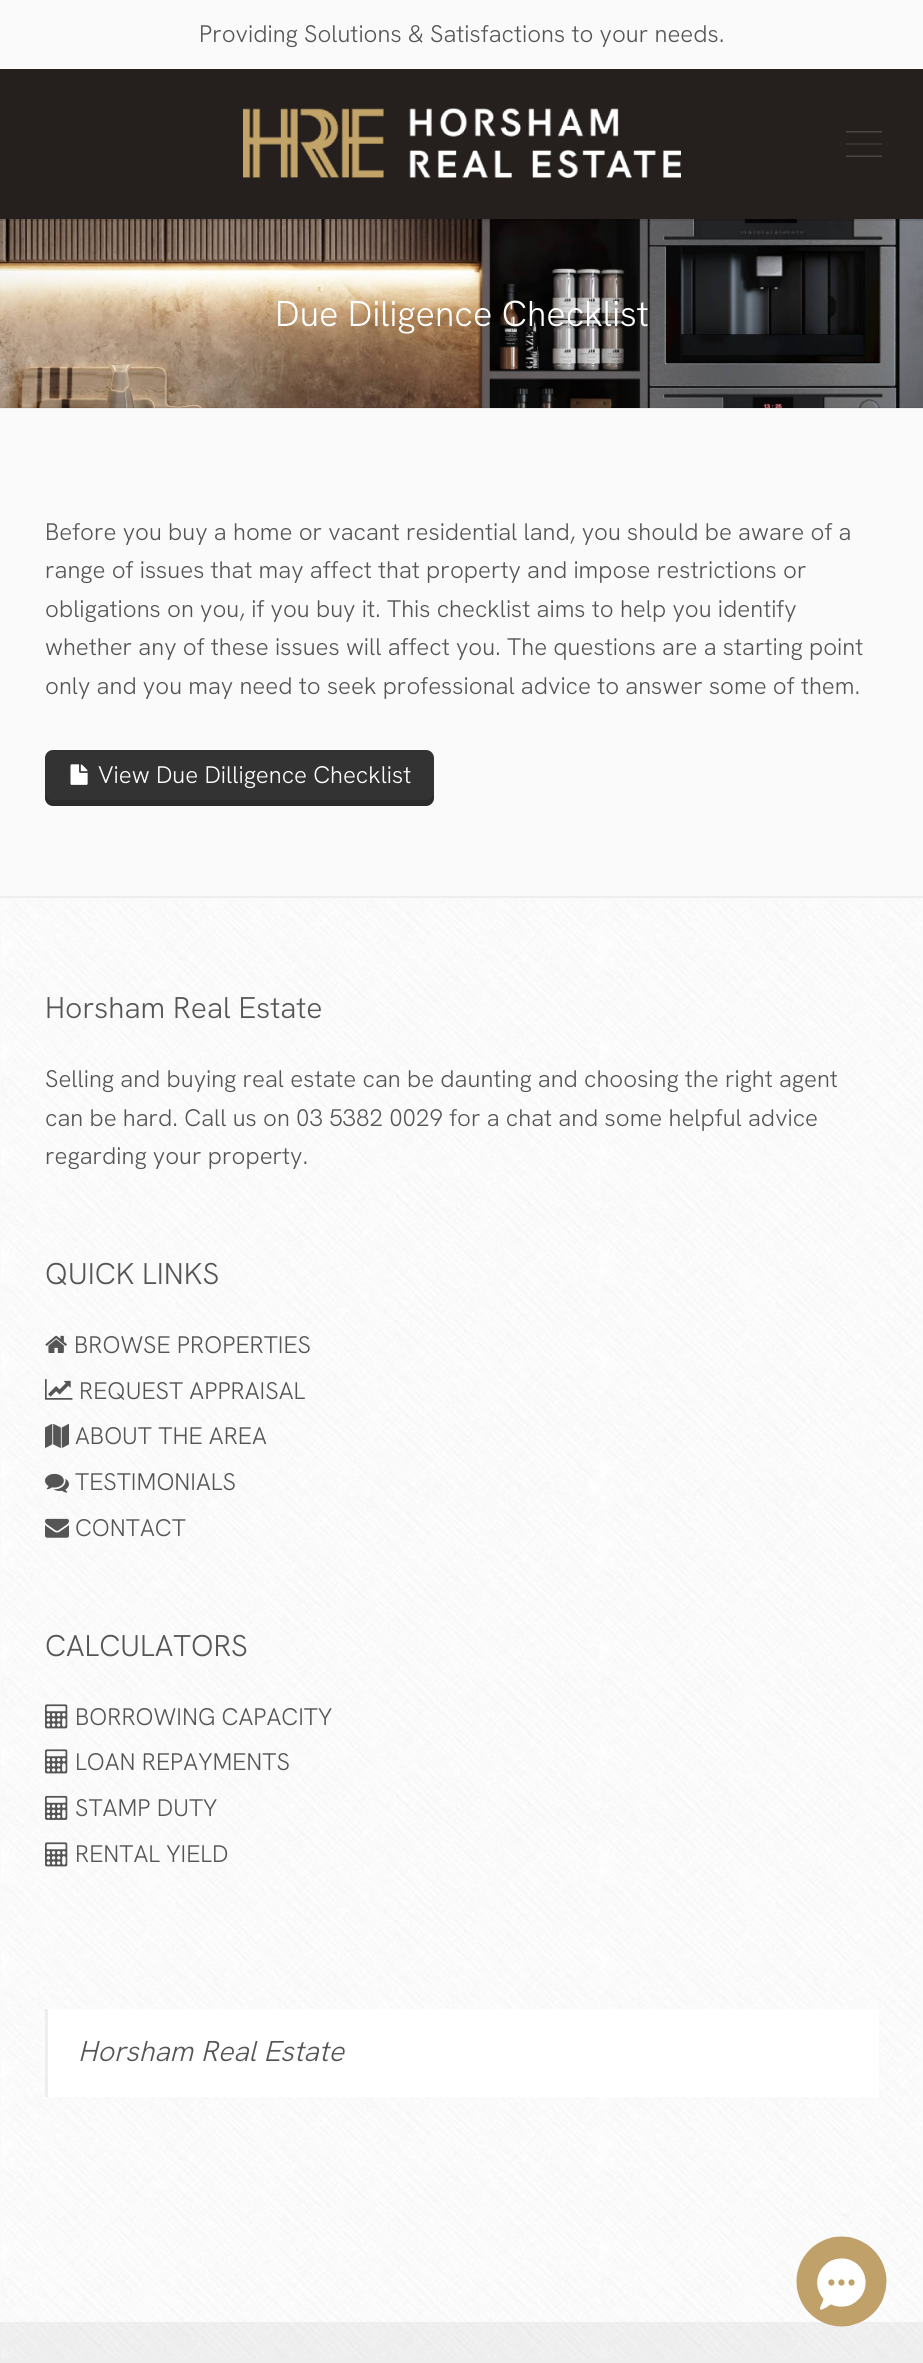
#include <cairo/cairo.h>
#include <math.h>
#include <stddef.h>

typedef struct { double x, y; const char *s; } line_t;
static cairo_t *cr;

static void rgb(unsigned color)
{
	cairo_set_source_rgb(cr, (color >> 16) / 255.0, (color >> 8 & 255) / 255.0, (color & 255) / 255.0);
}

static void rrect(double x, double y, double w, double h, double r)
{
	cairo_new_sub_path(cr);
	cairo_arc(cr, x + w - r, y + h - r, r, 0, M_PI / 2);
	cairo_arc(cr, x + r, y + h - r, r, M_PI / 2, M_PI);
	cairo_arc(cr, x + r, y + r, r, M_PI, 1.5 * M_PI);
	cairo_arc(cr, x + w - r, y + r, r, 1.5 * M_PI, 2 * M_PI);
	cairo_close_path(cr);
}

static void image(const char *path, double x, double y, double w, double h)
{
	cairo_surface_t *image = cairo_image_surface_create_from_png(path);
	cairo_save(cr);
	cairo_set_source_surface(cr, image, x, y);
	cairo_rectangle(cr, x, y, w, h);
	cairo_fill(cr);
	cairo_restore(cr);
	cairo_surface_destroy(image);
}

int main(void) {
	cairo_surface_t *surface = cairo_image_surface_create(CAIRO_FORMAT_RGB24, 923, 2363);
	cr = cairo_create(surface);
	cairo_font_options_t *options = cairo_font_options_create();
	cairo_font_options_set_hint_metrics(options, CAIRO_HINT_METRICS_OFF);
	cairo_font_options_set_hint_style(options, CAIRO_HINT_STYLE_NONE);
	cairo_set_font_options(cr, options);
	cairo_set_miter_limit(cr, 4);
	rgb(0xfafafa);
	cairo_paint(cr);
	rgb(0x251f1d);
	cairo_rectangle(cr, 0, 69, 923, 150);
	cairo_fill(cr);
	image("img/1.png", 243, 108, 438, 70);
	rgb(0x494847);
	cairo_new_path(cr);
	cairo_move_to(cr, 846, 131);
	cairo_line_to(cr, 882, 131);
	cairo_line_to(cr, 882, 132.5);
	cairo_line_to(cr, 846, 132.5);
	cairo_close_path(cr);
	cairo_move_to(cr, 846, 143.5);
	cairo_line_to(cr, 882, 143.5);
	cairo_line_to(cr, 882, 144.5);
	cairo_line_to(cr, 846, 144.5);
	cairo_close_path(cr);
	cairo_move_to(cr, 846, 155.5);
	cairo_line_to(cr, 882, 155.5);
	cairo_line_to(cr, 882, 157);
	cairo_line_to(cr, 846, 157);
	cairo_close_path(cr);
	cairo_fill(cr);
	image("img/2.png", 0, 219, 923, 189);
	cairo_set_source_rgba(cr, 0, 0, 0, 0.1);
	cairo_rectangle(cr, 0, 219, 923, 2);
	cairo_fill(cr);
	cairo_set_source_rgba(cr, 0, 0, 0, 0.05);
	cairo_rectangle(cr, 0, 407, 923, 2);
	cairo_fill(cr);
	rgb(0x333333);
	rrect(45, 750, 389, 56, 8);
	cairo_fill(cr);
	cairo_set_source_rgba(cr, 0, 0, 0, 0.15);
	cairo_new_path(cr);
	cairo_move_to(cr, 45, 792);
	cairo_line_to(cr, 45, 798);
	cairo_curve_to(cr, 45, 802, 49, 806, 53, 806);
	cairo_line_to(cr, 426, 806);
	cairo_curve_to(cr, 430, 806, 434, 802, 434, 798);
	cairo_line_to(cr, 434, 792);
	cairo_curve_to(cr, 434, 796, 430, 800, 426, 800);
	cairo_line_to(cr, 52, 800);
	cairo_curve_to(cr, 48, 800, 45, 796, 45, 792);
	cairo_close_path(cr);
	cairo_fill(cr);
	image("img/3.png", 70, 764, 18, 21);
	image("img/4.png", 1, 900, 921, 1459);
	rgb(0xeeeeee);
	cairo_rectangle(cr, 0, 896, 923, 2);
	cairo_fill(cr);
	image("img/5.png", 45, 1335, 22, 18);
	image("img/6.png", 45, 1379, 28, 21);
	image("img/7.png", 45, 1424, 24, 24);
	image("img/8.png", 45, 1473, 24, 20);
	image("img/9.png", 45, 1518, 24, 20);
	image("img/10.png", 45, 1704, 23, 25);
	image("img/11.png", 45, 1749, 23, 25);
	image("img/12.png", 45, 1795, 23, 25);
	image("img/13.png", 45, 1842, 23, 25);
	rgb(0xffffff);
	cairo_rectangle(cr, 48, 2009, 831, 88);
	cairo_fill(cr);
	rgb(0xeeeeee);
	cairo_rectangle(cr, 45, 2009, 3, 88);
	cairo_fill(cr);
	cairo_set_source_rgba(cr, 0, 0, 0, 0.05);
	cairo_rectangle(cr, 0, 2322, 923, 41);
	cairo_fill(cr);
	image("img/14.png", 796, 2214, 91, 113);
	cairo_select_font_face(cr, "Hanken Grotesk Light", CAIRO_FONT_SLANT_NORMAL, CAIRO_FONT_WEIGHT_NORMAL);
	cairo_set_font_size(cr, 24);
	rgb(0x555555);
	cairo_move_to(cr, 199, 42);
	cairo_show_text(cr, "Providing Solutions & Satisfactions to your needs.");
	cairo_set_font_size(cr, 36);
	rgb(0xffffff);
	cairo_move_to(cr, 275, 326);
	cairo_show_text(cr, "Due Diligence Checklist");
	cairo_set_font_size(cr, 24);
	rgb(0x555555);
	{
		static const line_t items[] = {
			{45, 540, "Before you buy a home or vacant residential land, you should be aware of a"},
			{45, 578, "range of issues that may affect that property and impose restrictions or"},
			{45, 617, "obligations on you, if you buy it. This checklist aims to help you identify"},
			{45, 655, "whether any of these issues will affect you. The questions are a starting point"},
			{45, 694, "only and you may need to seek professional advice to answer some of them."},
		};
		for (size_t i = 0; i < sizeof items / sizeof *items; i++) {
			cairo_move_to(cr, items[i].x, items[i].y);
			cairo_show_text(cr, items[i].s);
		}
	}
	rgb(0xffffff);
	cairo_move_to(cr, 98, 783);
	cairo_show_text(cr, "View Due Dilligence Checklist");
	cairo_set_font_size(cr, 30);
	rgb(0x555555);
	cairo_move_to(cr, 45, 1018);
	cairo_show_text(cr, "Horsham Real Estate");
	cairo_set_font_size(cr, 24);
	{
		static const line_t items[] = {
			{45, 1087, "Selling and buying real estate can be daunting and choosing the right agent"},
			{45, 1126, "can be hard. Call us on 03 5382 0029 for a chat and some helpful advice"},
			{45, 1164, "regarding your property."},
		};
		for (size_t i = 0; i < sizeof items / sizeof *items; i++) {
			cairo_move_to(cr, items[i].x, items[i].y);
			cairo_show_text(cr, items[i].s);
		}
	}
	cairo_set_font_size(cr, 30);
	cairo_move_to(cr, 45, 1284);
	cairo_show_text(cr, "QUICK LINKS");
	cairo_set_font_size(cr, 24);
	{
		static const line_t items[] = {
			{74, 1353, "BROWSE PROPERTIES"},
			{79, 1399, "REQUEST APPRAISAL"},
			{75, 1444, "ABOUT THE AREA"},
			{75, 1490, "TESTIMONIALS"},
			{75, 1536, "CONTACT"},
		};
		for (size_t i = 0; i < sizeof items / sizeof *items; i++) {
			cairo_move_to(cr, items[i].x, items[i].y);
			cairo_show_text(cr, items[i].s);
		}
	}
	cairo_set_font_size(cr, 30);
	cairo_move_to(cr, 45, 1656);
	cairo_show_text(cr, "CALCULATORS");
	cairo_set_font_size(cr, 24);
	{
		static const line_t items[] = {
			{75, 1725, "BORROWING CAPACITY"},
			{75, 1770, "LOAN REPAYMENTS"},
			{75, 1816, "STAMP DUTY"},
			{75, 1862, "RENTAL YIELD"},
		};
		for (size_t i = 0; i < sizeof items / sizeof *items; i++) {
			cairo_move_to(cr, items[i].x, items[i].y);
			cairo_show_text(cr, items[i].s);
		}
	}
	cairo_select_font_face(cr, "Hanken Grotesk Light", CAIRO_FONT_SLANT_ITALIC, CAIRO_FONT_WEIGHT_NORMAL);
	cairo_set_font_size(cr, 28.75);
	cairo_move_to(cr, 78, 2061);
	cairo_show_text(cr, "Horsham Real Estate");
	cairo_surface_write_to_png(surface, "page.png");
	cairo_font_options_destroy(options);
	cairo_destroy(cr);
	cairo_surface_destroy(surface);
	return 0;
}
